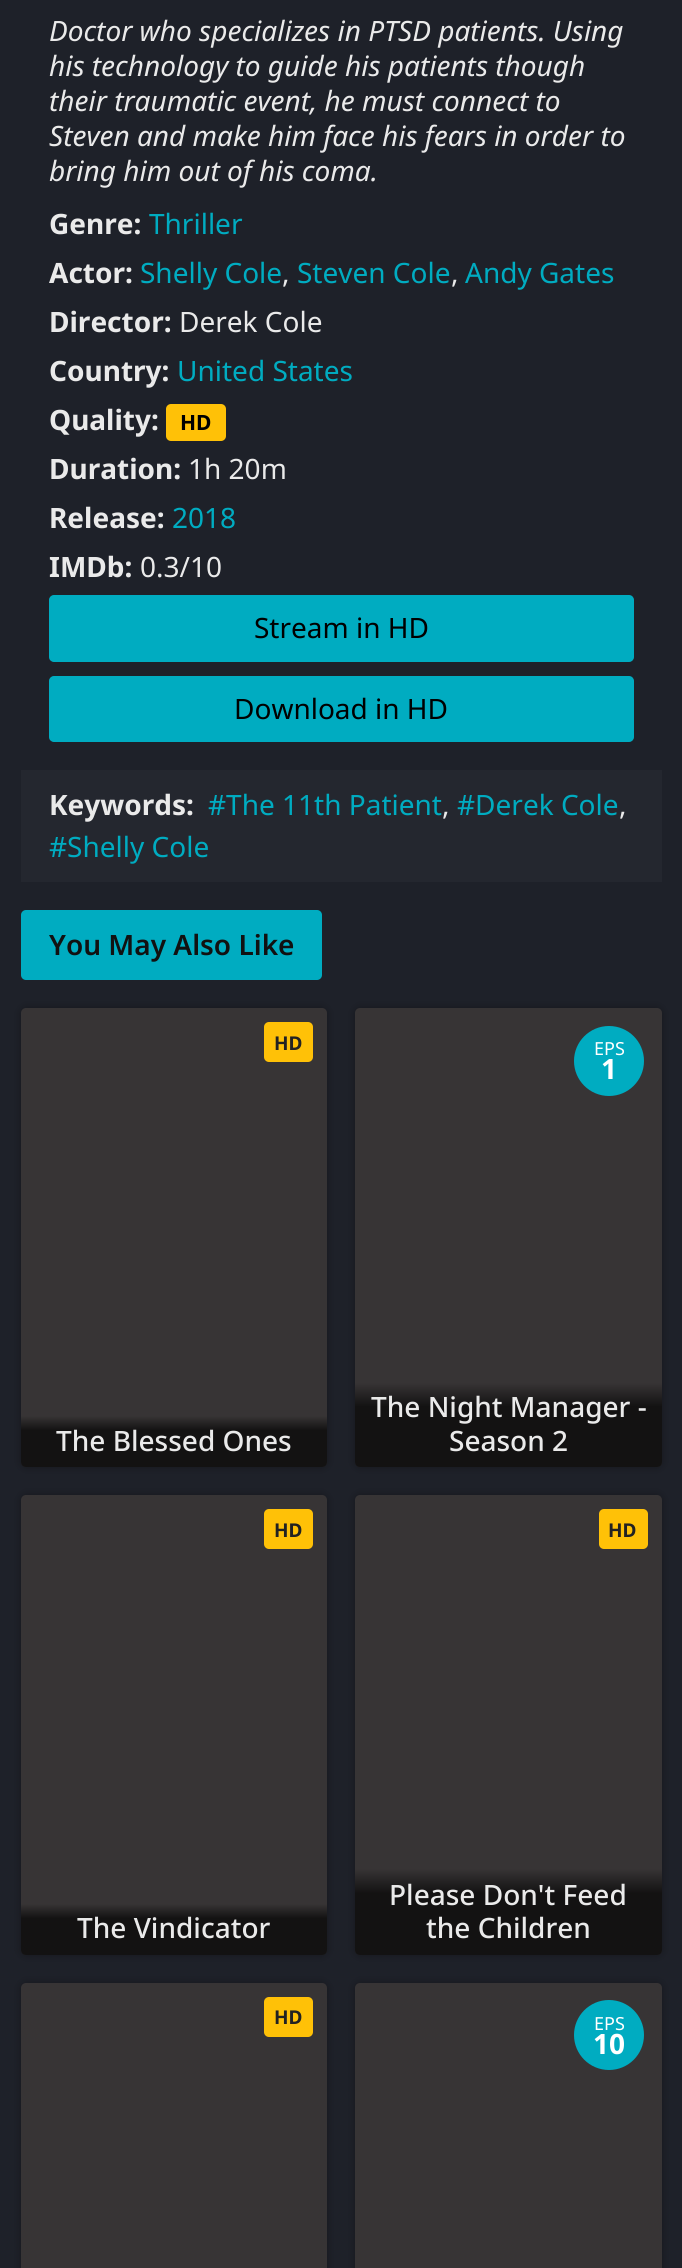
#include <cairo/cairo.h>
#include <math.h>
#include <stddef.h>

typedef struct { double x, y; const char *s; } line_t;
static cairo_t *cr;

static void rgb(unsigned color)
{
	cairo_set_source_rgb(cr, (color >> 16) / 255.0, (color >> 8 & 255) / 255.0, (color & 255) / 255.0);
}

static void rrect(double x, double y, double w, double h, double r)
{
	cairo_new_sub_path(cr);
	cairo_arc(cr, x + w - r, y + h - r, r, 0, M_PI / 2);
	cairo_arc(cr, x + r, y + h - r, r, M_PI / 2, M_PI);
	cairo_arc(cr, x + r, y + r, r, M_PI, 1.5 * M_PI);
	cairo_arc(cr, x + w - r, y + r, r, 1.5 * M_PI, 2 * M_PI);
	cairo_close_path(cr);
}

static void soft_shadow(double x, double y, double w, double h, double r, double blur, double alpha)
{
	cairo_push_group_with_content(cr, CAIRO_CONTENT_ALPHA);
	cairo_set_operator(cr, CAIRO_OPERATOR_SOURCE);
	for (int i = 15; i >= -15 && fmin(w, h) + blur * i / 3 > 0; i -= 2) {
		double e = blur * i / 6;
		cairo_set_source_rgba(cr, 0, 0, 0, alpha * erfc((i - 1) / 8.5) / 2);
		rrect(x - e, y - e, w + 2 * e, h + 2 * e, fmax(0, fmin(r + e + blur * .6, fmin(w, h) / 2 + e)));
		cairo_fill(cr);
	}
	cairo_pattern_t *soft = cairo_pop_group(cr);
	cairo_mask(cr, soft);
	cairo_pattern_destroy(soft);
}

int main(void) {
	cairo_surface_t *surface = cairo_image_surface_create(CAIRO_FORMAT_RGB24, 682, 2268);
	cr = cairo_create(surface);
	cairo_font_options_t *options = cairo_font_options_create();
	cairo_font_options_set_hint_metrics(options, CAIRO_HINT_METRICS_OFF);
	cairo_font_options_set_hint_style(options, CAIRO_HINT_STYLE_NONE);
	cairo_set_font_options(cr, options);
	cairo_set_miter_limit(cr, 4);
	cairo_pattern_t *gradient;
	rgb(0x1e2129);
	cairo_paint(cr);
	rgb(0xffc107);
	rrect(166, 404, 60, 37, 5);
	cairo_fill(cr);
	rgb(0x00acc1);
	rrect(50, 596, 583, 65, 4);
	cairo_fill_preserve(cr);
	cairo_stroke(cr);
	rrect(50, 677, 583, 64, 4);
	cairo_fill_preserve(cr);
	cairo_stroke(cr);
	cairo_set_source_rgba(cr, 0.918, 0.918, 0.918, 0.03);
	cairo_rectangle(cr, 21, 770, 641, 112);
	cairo_fill(cr);
	rgb(0x00acc1);
	rrect(21, 910, 301, 70, 5);
	cairo_fill(cr);
	rgb(0x000000);
	soft_shadow(21, 1008, 306, 459, 5, 4.5, 0.3);
	cairo_save(cr);
	cairo_new_path(cr);
	cairo_move_to(cr, 25, 1008);
	cairo_line_to(cr, 323, 1008);
	cairo_curve_to(cr, 325, 1008, 327, 1010, 327, 1012);
	cairo_line_to(cr, 327, 1467);
	cairo_line_to(cr, 21, 1467);
	cairo_line_to(cr, 21, 1012);
	cairo_curve_to(cr, 21, 1010, 23, 1008, 25, 1008);
	cairo_close_path(cr);
	cairo_clip(cr);
	rgb(0x373435);
	rrect(21, 1008, 306, 459, 5);
	cairo_fill(cr);
	cairo_restore(cr);
	rgb(0xffc107);
	rrect(264, 1022, 49, 40, 5);
	cairo_fill(cr);
	gradient = cairo_pattern_create_linear(174, 1416, 174, 1467);
	cairo_pattern_add_color_stop_rgba(gradient, 0, 0, 0, 0, 0);
	cairo_pattern_add_color_stop_rgba(gradient, 0.28, 0, 0, 0, 0.65);
	cairo_pattern_add_color_stop_rgba(gradient, 1, 0, 0, 0, 0.65);
	cairo_set_source(cr, gradient);
	cairo_pattern_destroy(gradient);
	cairo_new_path(cr);
	cairo_move_to(cr, 21, 1416);
	cairo_line_to(cr, 327, 1416);
	cairo_line_to(cr, 327, 1462);
	cairo_curve_to(cr, 327, 1465, 325, 1467, 322, 1467);
	cairo_line_to(cr, 26, 1467);
	cairo_curve_to(cr, 23, 1467, 21, 1465, 21, 1462);
	cairo_close_path(cr);
	cairo_fill(cr);
	rgb(0x000000);
	soft_shadow(355, 1008, 307, 459, 5, 4.5, 0.3);
	cairo_save(cr);
	cairo_new_path(cr);
	cairo_move_to(cr, 359, 1008);
	cairo_line_to(cr, 658, 1008);
	cairo_curve_to(cr, 660, 1008, 662, 1010, 662, 1012);
	cairo_line_to(cr, 662, 1467);
	cairo_line_to(cr, 355, 1467);
	cairo_line_to(cr, 355, 1012);
	cairo_curve_to(cr, 355, 1010, 357, 1008, 359, 1008);
	cairo_close_path(cr);
	cairo_clip(cr);
	rgb(0x373435);
	rrect(355, 1008, 307, 459, 5);
	cairo_fill(cr);
	cairo_restore(cr);
	rgb(0x00acc1);
	cairo_arc(cr, 609, 1061, 35, 0, 2 * M_PI);
	cairo_fill(cr);
	gradient = cairo_pattern_create_linear(508, 1383, 508, 1467);
	cairo_pattern_add_color_stop_rgba(gradient, 0, 0, 0, 0, 0);
	cairo_pattern_add_color_stop_rgba(gradient, 0.28, 0, 0, 0, 0.65);
	cairo_pattern_add_color_stop_rgba(gradient, 1, 0, 0, 0, 0.65);
	cairo_set_source(cr, gradient);
	cairo_pattern_destroy(gradient);
	cairo_new_path(cr);
	cairo_move_to(cr, 355, 1383);
	cairo_line_to(cr, 662, 1383);
	cairo_line_to(cr, 662, 1462);
	cairo_curve_to(cr, 662, 1465, 660, 1467, 657, 1467);
	cairo_line_to(cr, 360, 1467);
	cairo_curve_to(cr, 357, 1467, 355, 1465, 355, 1462);
	cairo_close_path(cr);
	cairo_fill(cr);
	rgb(0x000000);
	soft_shadow(21, 1495, 306, 460, 5, 4.5, 0.3);
	cairo_save(cr);
	cairo_new_path(cr);
	cairo_move_to(cr, 25, 1495);
	cairo_line_to(cr, 323, 1495);
	cairo_curve_to(cr, 325, 1495, 327, 1497, 327, 1499);
	cairo_line_to(cr, 327, 1955);
	cairo_line_to(cr, 21, 1955);
	cairo_line_to(cr, 21, 1499);
	cairo_curve_to(cr, 21, 1497, 23, 1495, 25, 1495);
	cairo_close_path(cr);
	cairo_clip(cr);
	rgb(0x373435);
	rrect(21, 1495, 306, 460, 5);
	cairo_fill(cr);
	cairo_restore(cr);
	rgb(0xffc107);
	rrect(264, 1509, 49, 40, 5);
	cairo_fill(cr);
	gradient = cairo_pattern_create_linear(174, 1904, 174, 1955);
	cairo_pattern_add_color_stop_rgba(gradient, 0, 0, 0, 0, 0);
	cairo_pattern_add_color_stop_rgba(gradient, 0.28, 0, 0, 0, 0.65);
	cairo_pattern_add_color_stop_rgba(gradient, 1, 0, 0, 0, 0.65);
	cairo_set_source(cr, gradient);
	cairo_pattern_destroy(gradient);
	cairo_new_path(cr);
	cairo_move_to(cr, 21, 1904);
	cairo_line_to(cr, 327, 1904);
	cairo_line_to(cr, 327, 1950);
	cairo_curve_to(cr, 327, 1953, 325, 1955, 322, 1955);
	cairo_line_to(cr, 26, 1955);
	cairo_curve_to(cr, 23, 1955, 21, 1953, 21, 1950);
	cairo_close_path(cr);
	cairo_fill(cr);
	rgb(0x000000);
	soft_shadow(355, 1495, 307, 460, 5, 4.5, 0.3);
	cairo_save(cr);
	cairo_new_path(cr);
	cairo_move_to(cr, 359, 1495);
	cairo_line_to(cr, 658, 1495);
	cairo_curve_to(cr, 660, 1495, 662, 1497, 662, 1499);
	cairo_line_to(cr, 662, 1955);
	cairo_line_to(cr, 355, 1955);
	cairo_line_to(cr, 355, 1499);
	cairo_curve_to(cr, 355, 1497, 357, 1495, 359, 1495);
	cairo_close_path(cr);
	cairo_clip(cr);
	rgb(0x373435);
	rrect(355, 1495, 307, 460, 5);
	cairo_fill(cr);
	cairo_restore(cr);
	rgb(0xffc107);
	rrect(599, 1509, 49, 40, 5);
	cairo_fill(cr);
	gradient = cairo_pattern_create_linear(508, 1869, 508, 1955);
	cairo_pattern_add_color_stop_rgba(gradient, 0, 0, 0, 0, 0);
	cairo_pattern_add_color_stop_rgba(gradient, 0.28, 0, 0, 0, 0.65);
	cairo_pattern_add_color_stop_rgba(gradient, 1, 0, 0, 0, 0.65);
	cairo_set_source(cr, gradient);
	cairo_pattern_destroy(gradient);
	cairo_new_path(cr);
	cairo_move_to(cr, 355, 1869);
	cairo_line_to(cr, 662, 1869);
	cairo_line_to(cr, 662, 1950);
	cairo_curve_to(cr, 662, 1953, 660, 1955, 657, 1955);
	cairo_line_to(cr, 360, 1955);
	cairo_curve_to(cr, 357, 1955, 355, 1953, 355, 1950);
	cairo_close_path(cr);
	cairo_fill(cr);
	rgb(0x000000);
	soft_shadow(21, 1983, 306, 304, 5, 4.5, 0.3);
	cairo_save(cr);
	cairo_new_path(cr);
	cairo_move_to(cr, 25, 1983);
	cairo_line_to(cr, 323, 1983);
	cairo_curve_to(cr, 325, 1983, 327, 1985, 327, 1987);
	cairo_line_to(cr, 327, 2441);
	cairo_line_to(cr, 21, 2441);
	cairo_line_to(cr, 21, 1987);
	cairo_curve_to(cr, 21, 1985, 23, 1983, 25, 1983);
	cairo_close_path(cr);
	cairo_clip(cr);
	rgb(0x373435);
	rrect(21, 1983, 306, 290, 5);
	cairo_fill(cr);
	cairo_restore(cr);
	rgb(0xffc107);
	rrect(264, 1997, 49, 40, 5);
	cairo_fill(cr);
	rgb(0x000000);
	soft_shadow(355, 1983, 307, 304, 5, 4.5, 0.3);
	cairo_save(cr);
	cairo_new_path(cr);
	cairo_move_to(cr, 359, 1983);
	cairo_line_to(cr, 658, 1983);
	cairo_curve_to(cr, 660, 1983, 662, 1985, 662, 1987);
	cairo_line_to(cr, 662, 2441);
	cairo_line_to(cr, 355, 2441);
	cairo_line_to(cr, 355, 1987);
	cairo_curve_to(cr, 355, 1985, 357, 1983, 359, 1983);
	cairo_close_path(cr);
	cairo_clip(cr);
	rgb(0x373435);
	rrect(355, 1983, 307, 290, 5);
	cairo_fill(cr);
	cairo_restore(cr);
	rgb(0x00acc1);
	cairo_arc(cr, 609, 2035, 35, 0, 2 * M_PI);
	cairo_fill(cr);
	cairo_select_font_face(cr, "Noto Sans", CAIRO_FONT_SLANT_ITALIC, CAIRO_FONT_WEIGHT_NORMAL);
	cairo_set_font_size(cr, 28);
	rgb(0xeaeaea);
	{
		static const line_t items[] = {
			{49, 41, "Doctor who specializes in PTSD patients. Using"},
			{49, 76, "his technology to guide his patients though"},
			{49, 111, "their traumatic event, he must connect to"},
			{49, 146, "Steven and make him face his fears in order to"},
			{49, 181, "bring him out of his coma."},
		};
		for (size_t i = 0; i < sizeof items / sizeof *items; i++) {
			cairo_move_to(cr, items[i].x, items[i].y);
			cairo_show_text(cr, items[i].s);
		}
	}
	cairo_select_font_face(cr, "Noto Sans", CAIRO_FONT_SLANT_NORMAL, CAIRO_FONT_WEIGHT_BOLD);
	cairo_move_to(cr, 49, 234);
	cairo_show_text(cr, "Genre:");
	cairo_select_font_face(cr, "Noto Sans", CAIRO_FONT_SLANT_NORMAL, CAIRO_FONT_WEIGHT_NORMAL);
	rgb(0x00acc1);
	cairo_move_to(cr, 149, 234);
	cairo_show_text(cr, "Thriller");
	cairo_select_font_face(cr, "Noto Sans", CAIRO_FONT_SLANT_NORMAL, CAIRO_FONT_WEIGHT_BOLD);
	rgb(0xeaeaea);
	cairo_move_to(cr, 49, 283);
	cairo_show_text(cr, "Actor:");
	cairo_select_font_face(cr, "Noto Sans", CAIRO_FONT_SLANT_NORMAL, CAIRO_FONT_WEIGHT_NORMAL);
	rgb(0x00acc1);
	cairo_move_to(cr, 140, 283);
	cairo_show_text(cr, "Shelly Cole");
	rgb(0xeaeaea);
	cairo_move_to(cr, 282, 283);
	cairo_show_text(cr, ",");
	rgb(0x00acc1);
	cairo_move_to(cr, 297, 283);
	cairo_show_text(cr, "Steven Cole");
	rgb(0xeaeaea);
	cairo_move_to(cr, 451, 283);
	cairo_show_text(cr, ",");
	rgb(0x00acc1);
	cairo_move_to(cr, 465, 283);
	cairo_show_text(cr, "Andy Gates");
	cairo_select_font_face(cr, "Noto Sans", CAIRO_FONT_SLANT_NORMAL, CAIRO_FONT_WEIGHT_BOLD);
	rgb(0xeaeaea);
	cairo_move_to(cr, 49, 332);
	cairo_show_text(cr, "Director:");
	cairo_select_font_face(cr, "Noto Sans", CAIRO_FONT_SLANT_NORMAL, CAIRO_FONT_WEIGHT_NORMAL);
	cairo_move_to(cr, 179, 332);
	cairo_show_text(cr, "Derek Cole");
	cairo_select_font_face(cr, "Noto Sans", CAIRO_FONT_SLANT_NORMAL, CAIRO_FONT_WEIGHT_BOLD);
	cairo_move_to(cr, 49, 381);
	cairo_show_text(cr, "Country:");
	cairo_select_font_face(cr, "Noto Sans", CAIRO_FONT_SLANT_NORMAL, CAIRO_FONT_WEIGHT_NORMAL);
	rgb(0x00acc1);
	cairo_move_to(cr, 177, 381);
	cairo_show_text(cr, "United States");
	cairo_select_font_face(cr, "Noto Sans", CAIRO_FONT_SLANT_NORMAL, CAIRO_FONT_WEIGHT_BOLD);
	rgb(0xeaeaea);
	cairo_move_to(cr, 49, 430);
	cairo_show_text(cr, "Quality:");
	cairo_set_font_size(cr, 21);
	rgb(0x000000);
	cairo_move_to(cr, 180, 430);
	cairo_show_text(cr, "HD");
	cairo_set_font_size(cr, 28);
	rgb(0xeaeaea);
	cairo_move_to(cr, 49, 479);
	cairo_show_text(cr, "Duration:");
	cairo_select_font_face(cr, "Noto Sans", CAIRO_FONT_SLANT_NORMAL, CAIRO_FONT_WEIGHT_NORMAL);
	cairo_move_to(cr, 188, 479);
	cairo_show_text(cr, "1h 20m");
	cairo_select_font_face(cr, "Noto Sans", CAIRO_FONT_SLANT_NORMAL, CAIRO_FONT_WEIGHT_BOLD);
	cairo_move_to(cr, 49, 528);
	cairo_show_text(cr, "Release:");
	cairo_select_font_face(cr, "Noto Sans", CAIRO_FONT_SLANT_NORMAL, CAIRO_FONT_WEIGHT_NORMAL);
	rgb(0x00acc1);
	cairo_move_to(cr, 172, 528);
	cairo_show_text(cr, "2018");
	cairo_select_font_face(cr, "Noto Sans", CAIRO_FONT_SLANT_NORMAL, CAIRO_FONT_WEIGHT_BOLD);
	rgb(0xeaeaea);
	cairo_move_to(cr, 49, 577);
	cairo_show_text(cr, "IMDb:");
	cairo_select_font_face(cr, "Noto Sans", CAIRO_FONT_SLANT_NORMAL, CAIRO_FONT_WEIGHT_NORMAL);
	cairo_move_to(cr, 140, 577);
	cairo_show_text(cr, "0.3/10");
	rgb(0x000000);
	cairo_move_to(cr, 254, 638);
	cairo_show_text(cr, "Stream in HD");
	cairo_move_to(cr, 234, 719);
	cairo_show_text(cr, "Download in HD");
	cairo_select_font_face(cr, "Noto Sans", CAIRO_FONT_SLANT_NORMAL, CAIRO_FONT_WEIGHT_BOLD);
	rgb(0xeaeaea);
	cairo_move_to(cr, 49, 815);
	cairo_show_text(cr, "Keywords:");
	cairo_select_font_face(cr, "Noto Sans", CAIRO_FONT_SLANT_NORMAL, CAIRO_FONT_WEIGHT_NORMAL);
	rgb(0x00acc1);
	cairo_move_to(cr, 208, 815);
	cairo_show_text(cr, "#The 11th Patient");
	rgb(0xeaeaea);
	cairo_move_to(cr, 442, 815);
	cairo_show_text(cr, ",");
	rgb(0x00acc1);
	cairo_move_to(cr, 457, 815);
	cairo_show_text(cr, "#Derek Cole");
	rgb(0xeaeaea);
	cairo_move_to(cr, 619, 815);
	cairo_show_text(cr, ",");
	rgb(0x00acc1);
	cairo_move_to(cr, 49, 857);
	cairo_show_text(cr, "#Shelly Cole");
	cairo_select_font_face(cr, "Noto Sans SemiBold", CAIRO_FONT_SLANT_NORMAL, CAIRO_FONT_WEIGHT_NORMAL);
	rgb(0x111111);
	cairo_move_to(cr, 49, 955);
	cairo_show_text(cr, "You May Also Like");
	cairo_select_font_face(cr, "Noto Sans", CAIRO_FONT_SLANT_NORMAL, CAIRO_FONT_WEIGHT_BOLD);
	cairo_set_font_size(cr, 19);
	rgb(0x222222);
	cairo_move_to(cr, 274, 1050);
	cairo_show_text(cr, "HD");
	cairo_select_font_face(cr, "Noto Sans Medium", CAIRO_FONT_SLANT_NORMAL, CAIRO_FONT_WEIGHT_NORMAL);
	cairo_set_font_size(cr, 28);
	rgb(0xeaeaea);
	cairo_move_to(cr, 56, 1451);
	cairo_show_text(cr, "The Blessed Ones");
	cairo_select_font_face(cr, "Noto Sans", CAIRO_FONT_SLANT_NORMAL, CAIRO_FONT_WEIGHT_NORMAL);
	cairo_set_font_size(cr, 18);
	rgb(0xffffff);
	cairo_move_to(cr, 594, 1055);
	cairo_show_text(cr, "EPS");
	cairo_select_font_face(cr, "Noto Sans", CAIRO_FONT_SLANT_NORMAL, CAIRO_FONT_WEIGHT_BOLD);
	cairo_set_font_size(cr, 28);
	cairo_move_to(cr, 601, 1079);
	cairo_show_text(cr, "1");
	cairo_select_font_face(cr, "Noto Sans Medium", CAIRO_FONT_SLANT_NORMAL, CAIRO_FONT_WEIGHT_NORMAL);
	rgb(0xeaeaea);
	cairo_move_to(cr, 371, 1417);
	cairo_show_text(cr, "The Night Manager -");
	cairo_move_to(cr, 449, 1451);
	cairo_show_text(cr, "Season 2");
	cairo_select_font_face(cr, "Noto Sans", CAIRO_FONT_SLANT_NORMAL, CAIRO_FONT_WEIGHT_BOLD);
	cairo_set_font_size(cr, 19);
	rgb(0x222222);
	cairo_move_to(cr, 274, 1537);
	cairo_show_text(cr, "HD");
	cairo_select_font_face(cr, "Noto Sans Medium", CAIRO_FONT_SLANT_NORMAL, CAIRO_FONT_WEIGHT_NORMAL);
	cairo_set_font_size(cr, 28);
	rgb(0xeaeaea);
	cairo_move_to(cr, 77, 1938);
	cairo_show_text(cr, "The Vindicator");
	cairo_select_font_face(cr, "Noto Sans", CAIRO_FONT_SLANT_NORMAL, CAIRO_FONT_WEIGHT_BOLD);
	cairo_set_font_size(cr, 19);
	rgb(0x222222);
	cairo_move_to(cr, 608, 1537);
	cairo_show_text(cr, "HD");
	cairo_select_font_face(cr, "Noto Sans Medium", CAIRO_FONT_SLANT_NORMAL, CAIRO_FONT_WEIGHT_NORMAL);
	cairo_set_font_size(cr, 28);
	rgb(0xeaeaea);
	cairo_move_to(cr, 389, 1905);
	cairo_show_text(cr, "Please Don't Feed");
	cairo_move_to(cr, 426, 1938);
	cairo_show_text(cr, "the Children");
	cairo_select_font_face(cr, "Noto Sans", CAIRO_FONT_SLANT_NORMAL, CAIRO_FONT_WEIGHT_BOLD);
	cairo_set_font_size(cr, 19);
	rgb(0x222222);
	cairo_move_to(cr, 274, 2024);
	cairo_show_text(cr, "HD");
	cairo_select_font_face(cr, "Noto Sans", CAIRO_FONT_SLANT_NORMAL, CAIRO_FONT_WEIGHT_NORMAL);
	cairo_set_font_size(cr, 18);
	rgb(0xffffff);
	cairo_move_to(cr, 594, 2030);
	cairo_show_text(cr, "EPS");
	cairo_select_font_face(cr, "Noto Sans", CAIRO_FONT_SLANT_NORMAL, CAIRO_FONT_WEIGHT_BOLD);
	cairo_set_font_size(cr, 28);
	cairo_move_to(cr, 593, 2054);
	cairo_show_text(cr, "10");
	cairo_surface_write_to_png(surface, "page.png");
	cairo_font_options_destroy(options);
	cairo_destroy(cr);
	cairo_surface_destroy(surface);
	return 0;
}
